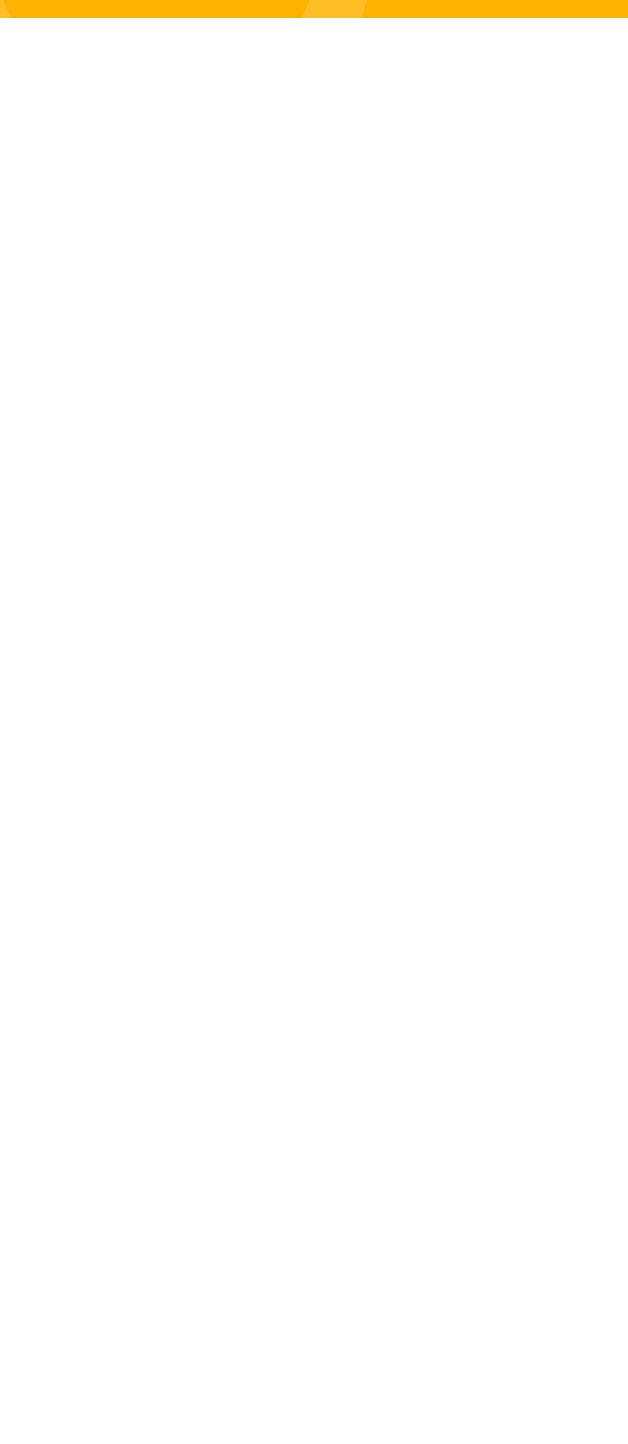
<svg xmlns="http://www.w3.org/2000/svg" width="628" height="1444">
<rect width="100%" height="100%" fill="#fff"/>
<rect width="628" height="18" fill="#ffb300"/>
<image x="0" y="0" width="367" height="18" href="media/1.png"/>
</svg>
